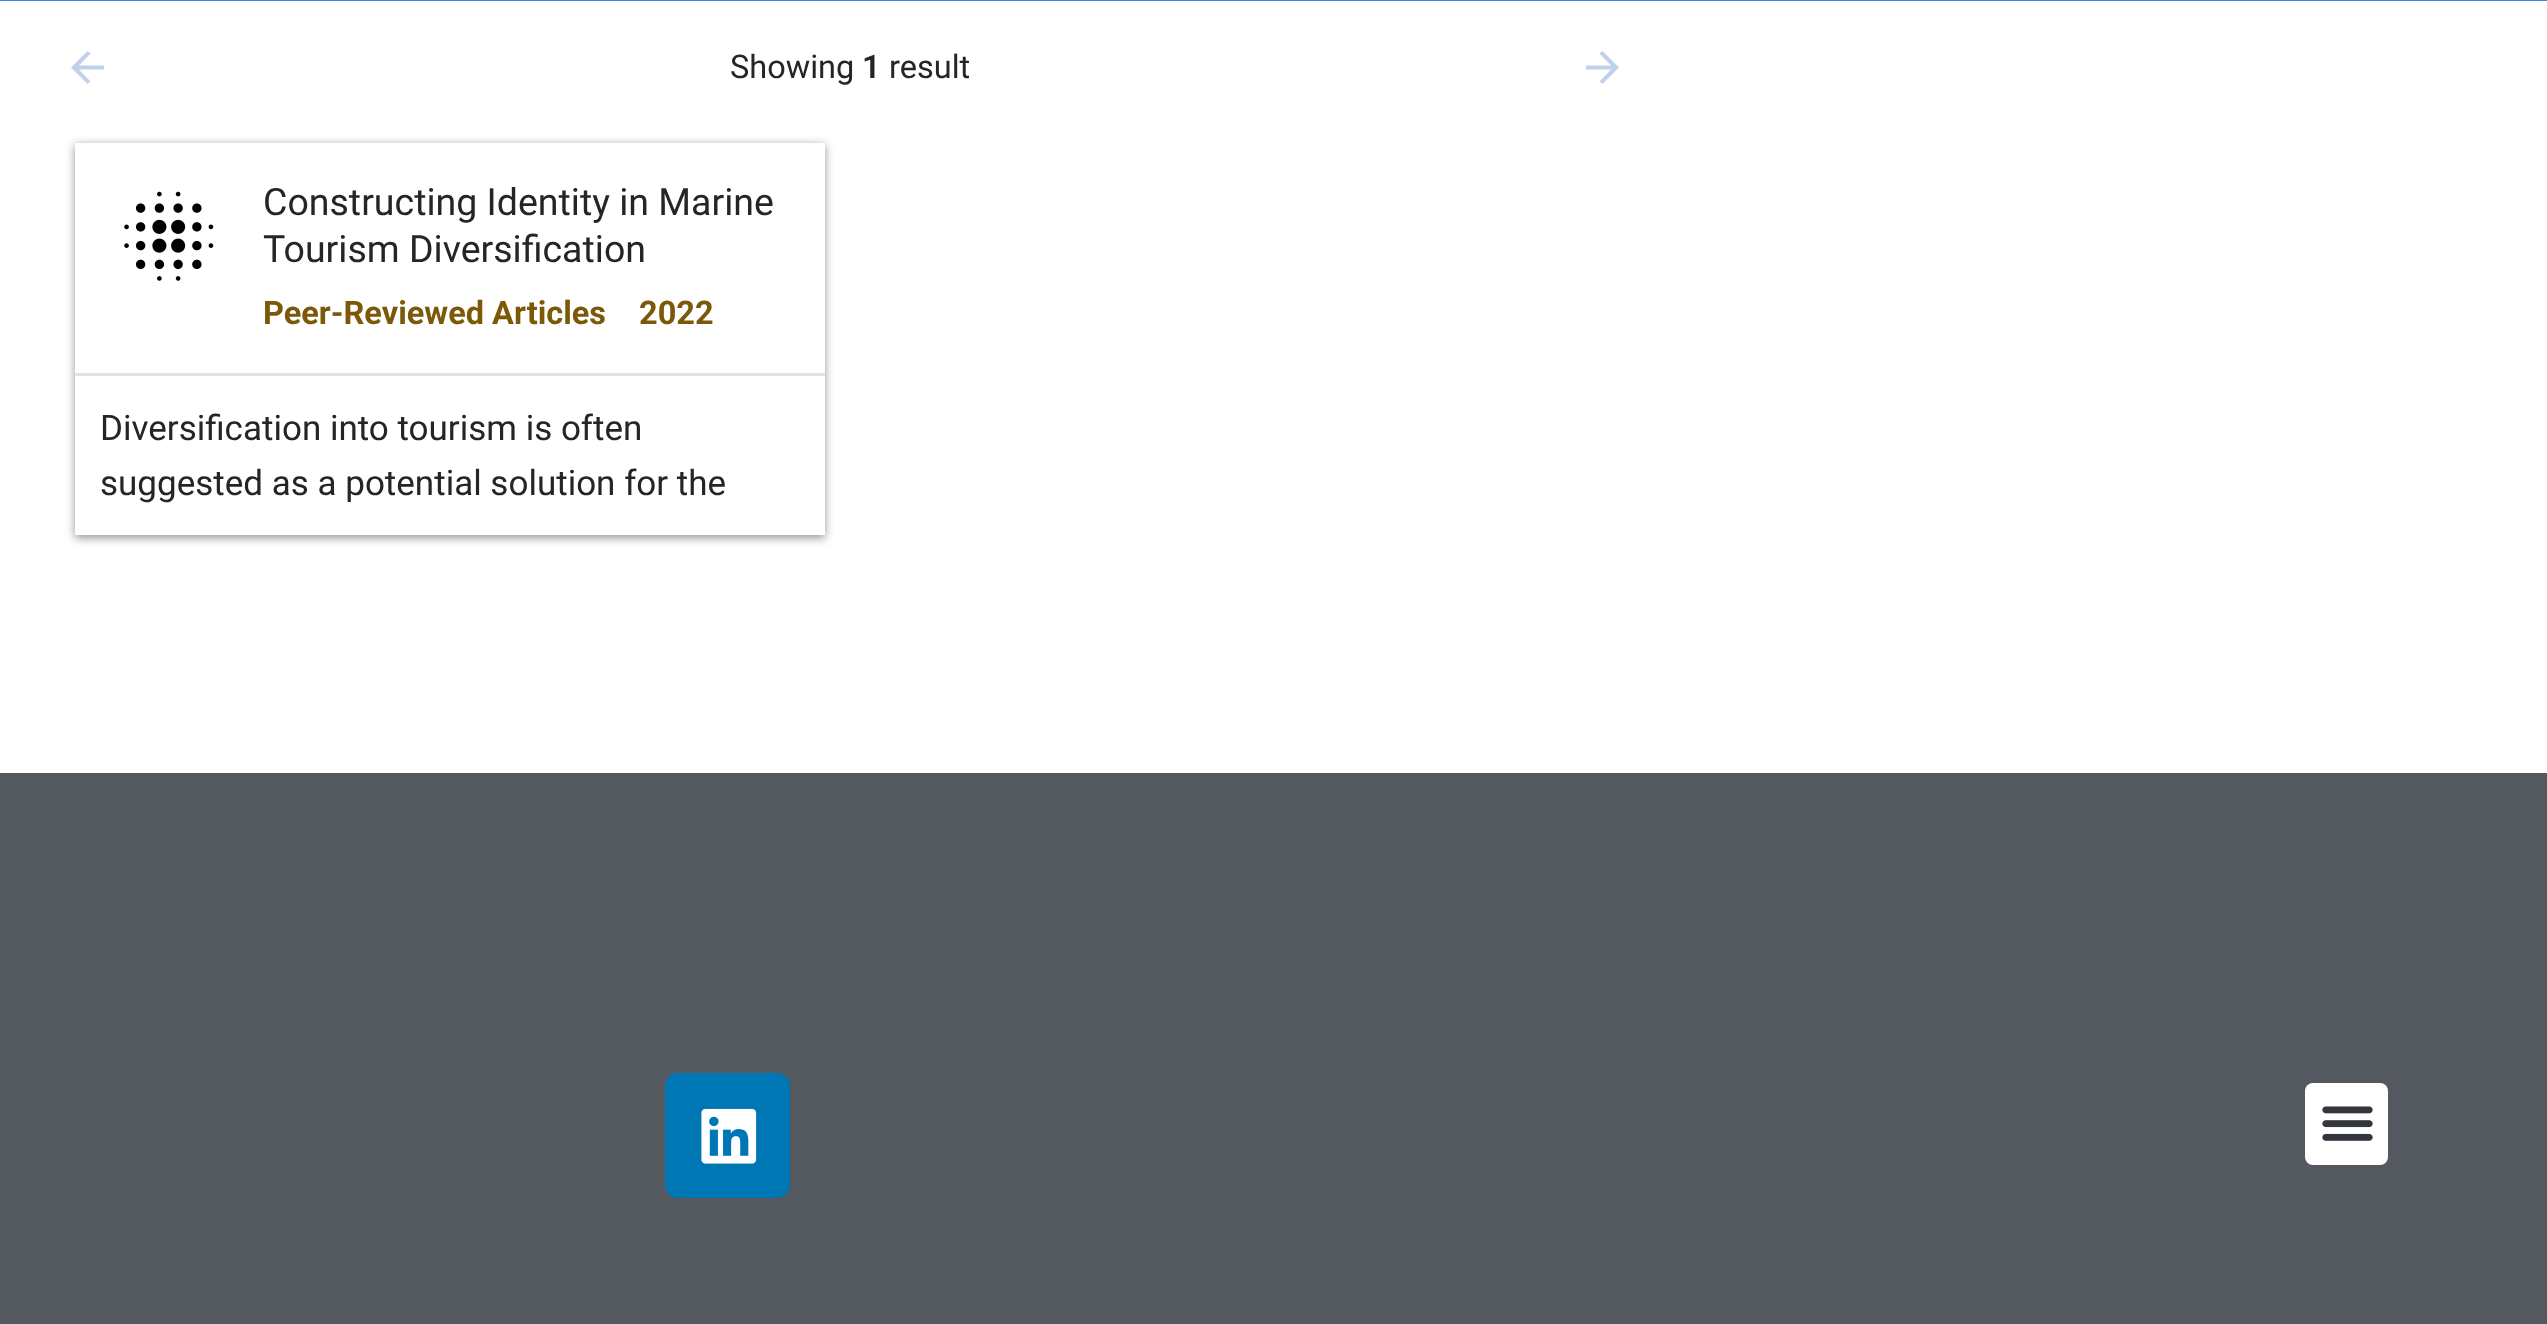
<svg xmlns="http://www.w3.org/2000/svg" width="2547" height="1324">
<defs>
<clipPath id="clip1"><path d="M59 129h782v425h-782zm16 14h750v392h-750z" clip-rule="evenodd"/></clipPath>
</defs>
<rect width="100%" height="100%" fill="#54595f"/>
<rect y="1" width="2547" height="772" fill="#fff"/>
<rect width="2547" height="1" fill="#3886e6"/>
<path d="M104 65.5v4h-25l11.5 12l-3 2.5l-16.5-16.5l16.5-16.5l3 2.5l-11.5 12z" fill="#c0d2e9"/>
<text x="730" y="78" style="font-family:Roboto;font-size:32.5px;fill:#242429">Showing</text>
<text x="862" y="78" style="font-family:Roboto;font-size:32.5px;font-weight:600;fill:#242429">1</text>
<text x="889" y="78" style="font-family:Roboto;font-size:32.5px;fill:#242429">result</text>
<path d="M1602.5 51l16.5 16.5l-16.5 16.5l-3-2.5l11.5-12h-25v-4h25l-11.5-12z" fill="#c0d2e9"/>
<g clip-path="url(#clip1)">
<rect x="75" y="145" width="750" height="393" fill="#0000006b" filter="blur(5px)"/>
</g>
<image x="124" y="191" width="90" height="90" href="media/1.png"/>
<text x="263" y="215" style="font-family:Roboto;font-size:37.5px;fill:#242429">Constructing Identity in Marine</text>
<text x="263" y="262" style="font-family:Roboto;font-size:37.5px;fill:#242429">Tourism Diversification</text>
<text x="263" y="324" style="font-family:Roboto;font-size:32.5px;font-weight:bold;fill:#7b5909">Peer-Reviewed Articles</text>
<text x="639" y="324" style="font-family:Roboto;font-size:32.5px;font-weight:bold;fill:#7b5909">2022</text>
<rect x="75" y="373" width="750" height="3" fill="#e3e3e3"/>
<text x="100" y="440" style="font-family:Roboto;font-size:35px;fill:#242429">Diversification into tourism is often</text>
<text x="100" y="495" style="font-family:Roboto;font-size:35px;fill:#242429">suggested as a potential solution for the</text>
<rect x="665" y="1073" width="125" height="125" rx="13" fill="#0077b5"/>
<image x="701" y="1108" width="56" height="56" href="media/2.png"/>
<rect x="2305" y="1083" width="83" height="82" rx="8" fill="#fff"/>
<image x="2322" y="1106" width="51" height="35" href="media/3.png"/>
</svg>
